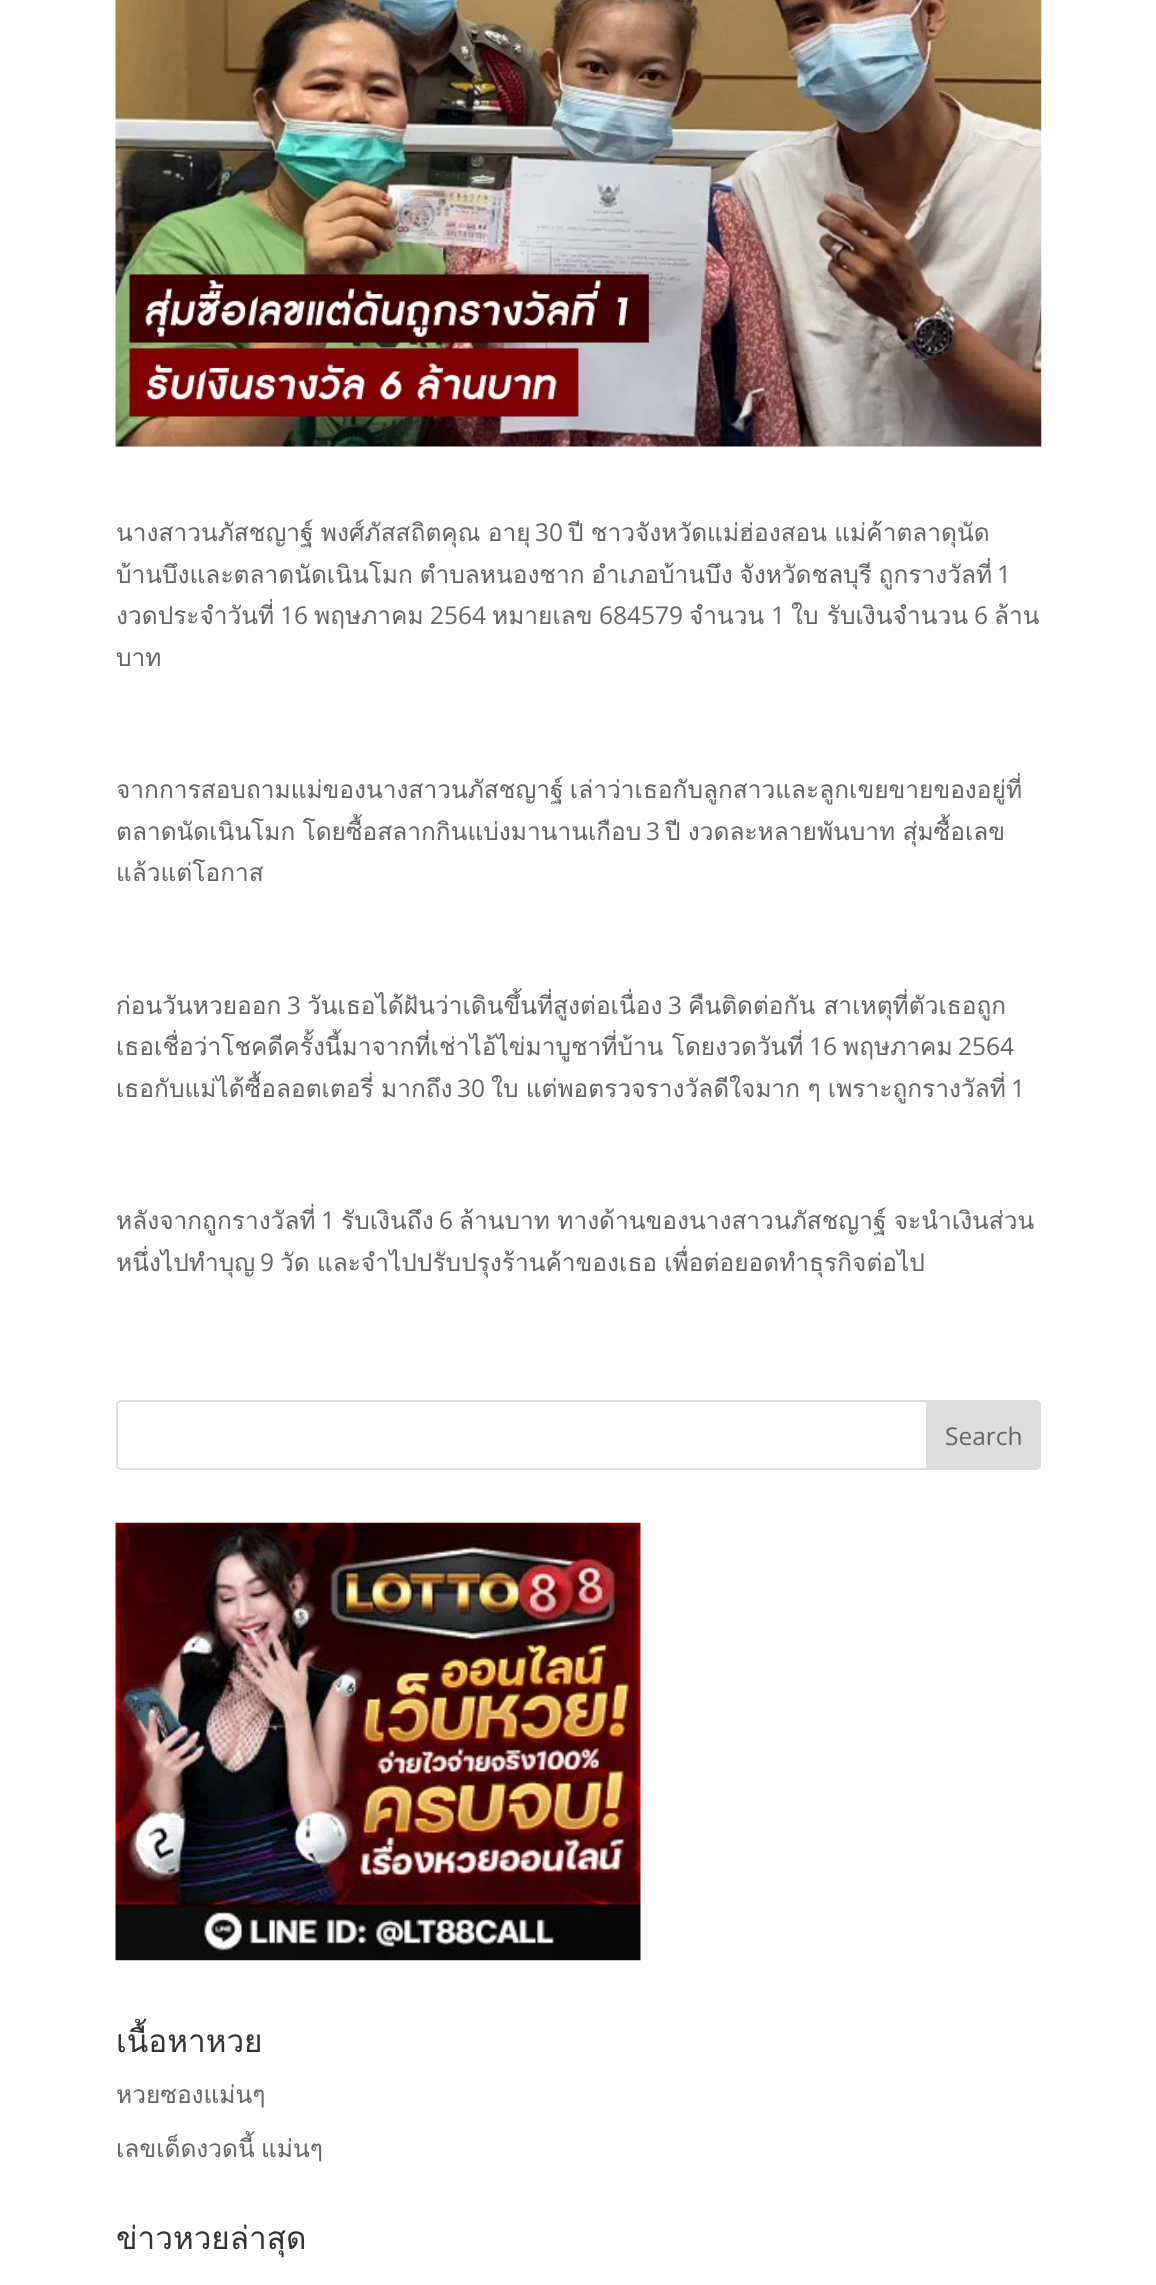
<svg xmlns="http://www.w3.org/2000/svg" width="1156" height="2285">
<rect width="100%" height="100%" fill="#fff"/>
<image x="115" y="0" width="927" height="447" href="media/1.png"/>
<text x="116" y="541" word-spacing="-1" style="font-family:Loma;font-size:24.5px;fill:#666">นางสาวนภัสชญาฐ์ พงศ์ภัสสถิตคุณ อายุ</text>
<text x="535" y="541" style="font-family:Open Sans;font-size:24.5px;fill:#666">30</text>
<text x="568" y="541" word-spacing="-1" style="font-family:Loma;font-size:24.5px;fill:#666">ปี ชาวจังหวัดแม่ฮ่องสอน แม่ค้าตลาดุนัด</text>
<text x="116" y="583" word-spacing="-1.5" style="font-family:Loma;font-size:24.5px;fill:#666">บ้านบึงและตลาดนัดเนินโมก ตำบลหนองชาก อำเภอบ้านบึง จังหวัดชลบุรี ถูกรางวัลที่</text>
<text x="997" y="583" style="font-family:Open Sans;font-size:24.5px;fill:#666">1</text>
<text x="116" y="624" style="font-family:Loma;font-size:24.5px;fill:#666">งวดประจำวันที่</text>
<text x="280" y="624" style="font-family:Open Sans;font-size:24.5px;fill:#666">16</text>
<text x="314" y="624" style="font-family:Loma;font-size:24.5px;fill:#666">พฤษภาคม</text>
<text x="430" y="624" style="font-family:Open Sans;font-size:24.5px;fill:#666">2564</text>
<text x="492" y="624" style="font-family:Loma;font-size:24.5px;fill:#666">หมายเลข</text>
<text x="599" y="624" style="font-family:Open Sans;font-size:24.5px;fill:#666">684579</text>
<text x="689" y="624" style="font-family:Loma;font-size:24.5px;fill:#666">จำนวน</text>
<text x="771" y="624" style="font-family:Open Sans;font-size:24.5px;fill:#666">1</text>
<text x="791" y="624" style="font-family:Loma;font-size:24.5px;fill:#666">ใบ รับเงินจำนวน</text>
<text x="974" y="624" style="font-family:Open Sans;font-size:24.5px;fill:#666">6</text>
<text x="994" y="624" style="font-family:Loma;font-size:24.5px;fill:#666">ล้าน</text>
<text x="116" y="666" style="font-family:Loma;font-size:24.5px;fill:#666">บาท</text>
<text x="116" y="798" word-spacing="-2" style="font-family:Loma;font-size:24.5px;fill:#666">จากการสอบถามแม่ของนางสาวนภัสชญาฐ์ เล่าว่าเธอกับลูกสาวและลูกเขยขายของอยู่ที่</text>
<text x="116" y="840" word-spacing="-1" style="font-family:Loma;font-size:24.5px;fill:#666">ตลาดนัดเนินโมก โดยซื้อสลากกินแบ่งมานานเกือบ</text>
<text x="646" y="840" style="font-family:Open Sans;font-size:24.5px;fill:#666">3</text>
<text x="665" y="840" word-spacing="-1" style="font-family:Loma;font-size:24.5px;fill:#666">ปี งวดละหลายพันบาท สุ่มซื้อเลข</text>
<text x="116" y="881" style="font-family:Loma;font-size:24.5px;fill:#666">แล้วแต่โอกาส</text>
<text x="116" y="1014" style="font-family:Loma;font-size:24.5px;fill:#666">ก่อนวันหวยออก</text>
<text x="287" y="1014" style="font-family:Open Sans;font-size:24.5px;fill:#666">3</text>
<text x="307" y="1014" style="font-family:Loma;font-size:24.5px;fill:#666">วันเธอได้ฝันว่าเดินขึ้นที่สูงต่อเนื่อง</text>
<text x="668" y="1014" style="font-family:Open Sans;font-size:24.5px;fill:#666">3</text>
<text x="688" y="1014" style="font-family:Loma;font-size:24.5px;fill:#666">คืนติดต่อกัน สาเหตุที่ตัวเธอถูก</text>
<text x="116" y="1055" style="font-family:Loma;font-size:24.5px;fill:#666">เธอเชื่อว่าโชคดีครั้งนี้มาจากที่เช่าไอ้ไข่มาบูชาที่บ้าน โดยงวดวันที่</text>
<text x="809" y="1055" style="font-family:Open Sans;font-size:24.5px;fill:#666">16</text>
<text x="843" y="1055" style="font-family:Loma;font-size:24.5px;fill:#666">พฤษภาคม</text>
<text x="958" y="1055" style="font-family:Open Sans;font-size:24.5px;fill:#666">2564</text>
<text x="116" y="1097" word-spacing="-1" style="font-family:Loma;font-size:24.5px;fill:#666">เธอกับแม่ได้ซื้อลอตเตอรี่ มากถึง</text>
<text x="457" y="1097" style="font-family:Open Sans;font-size:24.5px;fill:#666">30</text>
<text x="491" y="1097" word-spacing="-1" style="font-family:Loma;font-size:24.5px;fill:#666">ใบ แต่พอตรวจรางวัลดีใจมาก ๆ เพราะถูกรางวัลที่</text>
<text x="1011" y="1097" style="font-family:Open Sans;font-size:24.5px;fill:#666">1</text>
<text x="116" y="1229" style="font-family:Loma;font-size:24.5px;fill:#666">หลังจากถูกรางวัลที่</text>
<text x="321" y="1229" style="font-family:Open Sans;font-size:24.5px;fill:#666">1</text>
<text x="341" y="1229" style="font-family:Loma;font-size:24.5px;fill:#666">รับเงินถึง</text>
<text x="439" y="1229" style="font-family:Open Sans;font-size:24.5px;fill:#666">6</text>
<text x="459" y="1229" word-spacing="-1" style="font-family:Loma;font-size:24.5px;fill:#666">ล้านบาท ทางด้านของนางสาวนภัสชญาฐ์ จะนำเงินส่วน</text>
<text x="116" y="1271" style="font-family:Loma;font-size:24.5px;fill:#666">หนึ่งไปทำบุญ</text>
<text x="260" y="1271" style="font-family:Open Sans;font-size:24.5px;fill:#666">9</text>
<text x="280" y="1271" word-spacing="-1" style="font-family:Loma;font-size:24.5px;fill:#666">วัด และจำไปปรับปรุงร้านค้าของเธอ เพื่อต่อยอดทำธุรกิจต่อไป</text>
<rect x="117" y="1401" width="923" height="68" rx="4" fill="none" stroke="#ddd" stroke-width="2"/>
<path d="M927 1401h109c2 0 4 2 4 4v60c0 2-2 4-4 4h-109z" fill="#ddd" stroke="#ddd" stroke-width="2"/>
<text x="945" y="1445" style="font-family:Open Sans;font-size:24.5px;fill:#666">Search</text>
<image x="115" y="1522" width="526" height="439" href="media/2.png"/>
<text x="116" y="2052" style="font-family:Loma;font-size:31.5px;fill:#333">เนื้อหาหวย</text>
<text x="116" y="2103" style="font-family:Loma;font-size:24.5px;fill:#666">หวยซองแม่นๆ</text>
<text x="116" y="2157" word-spacing="-2" style="font-family:Loma;font-size:24.5px;fill:#666">เลขเด็ดงวดนี้ แม่นๆ</text>
<text x="116" y="2249" style="font-family:Loma;font-size:31.5px;fill:#333">ข่าวหวยล่าสุด</text>
</svg>
